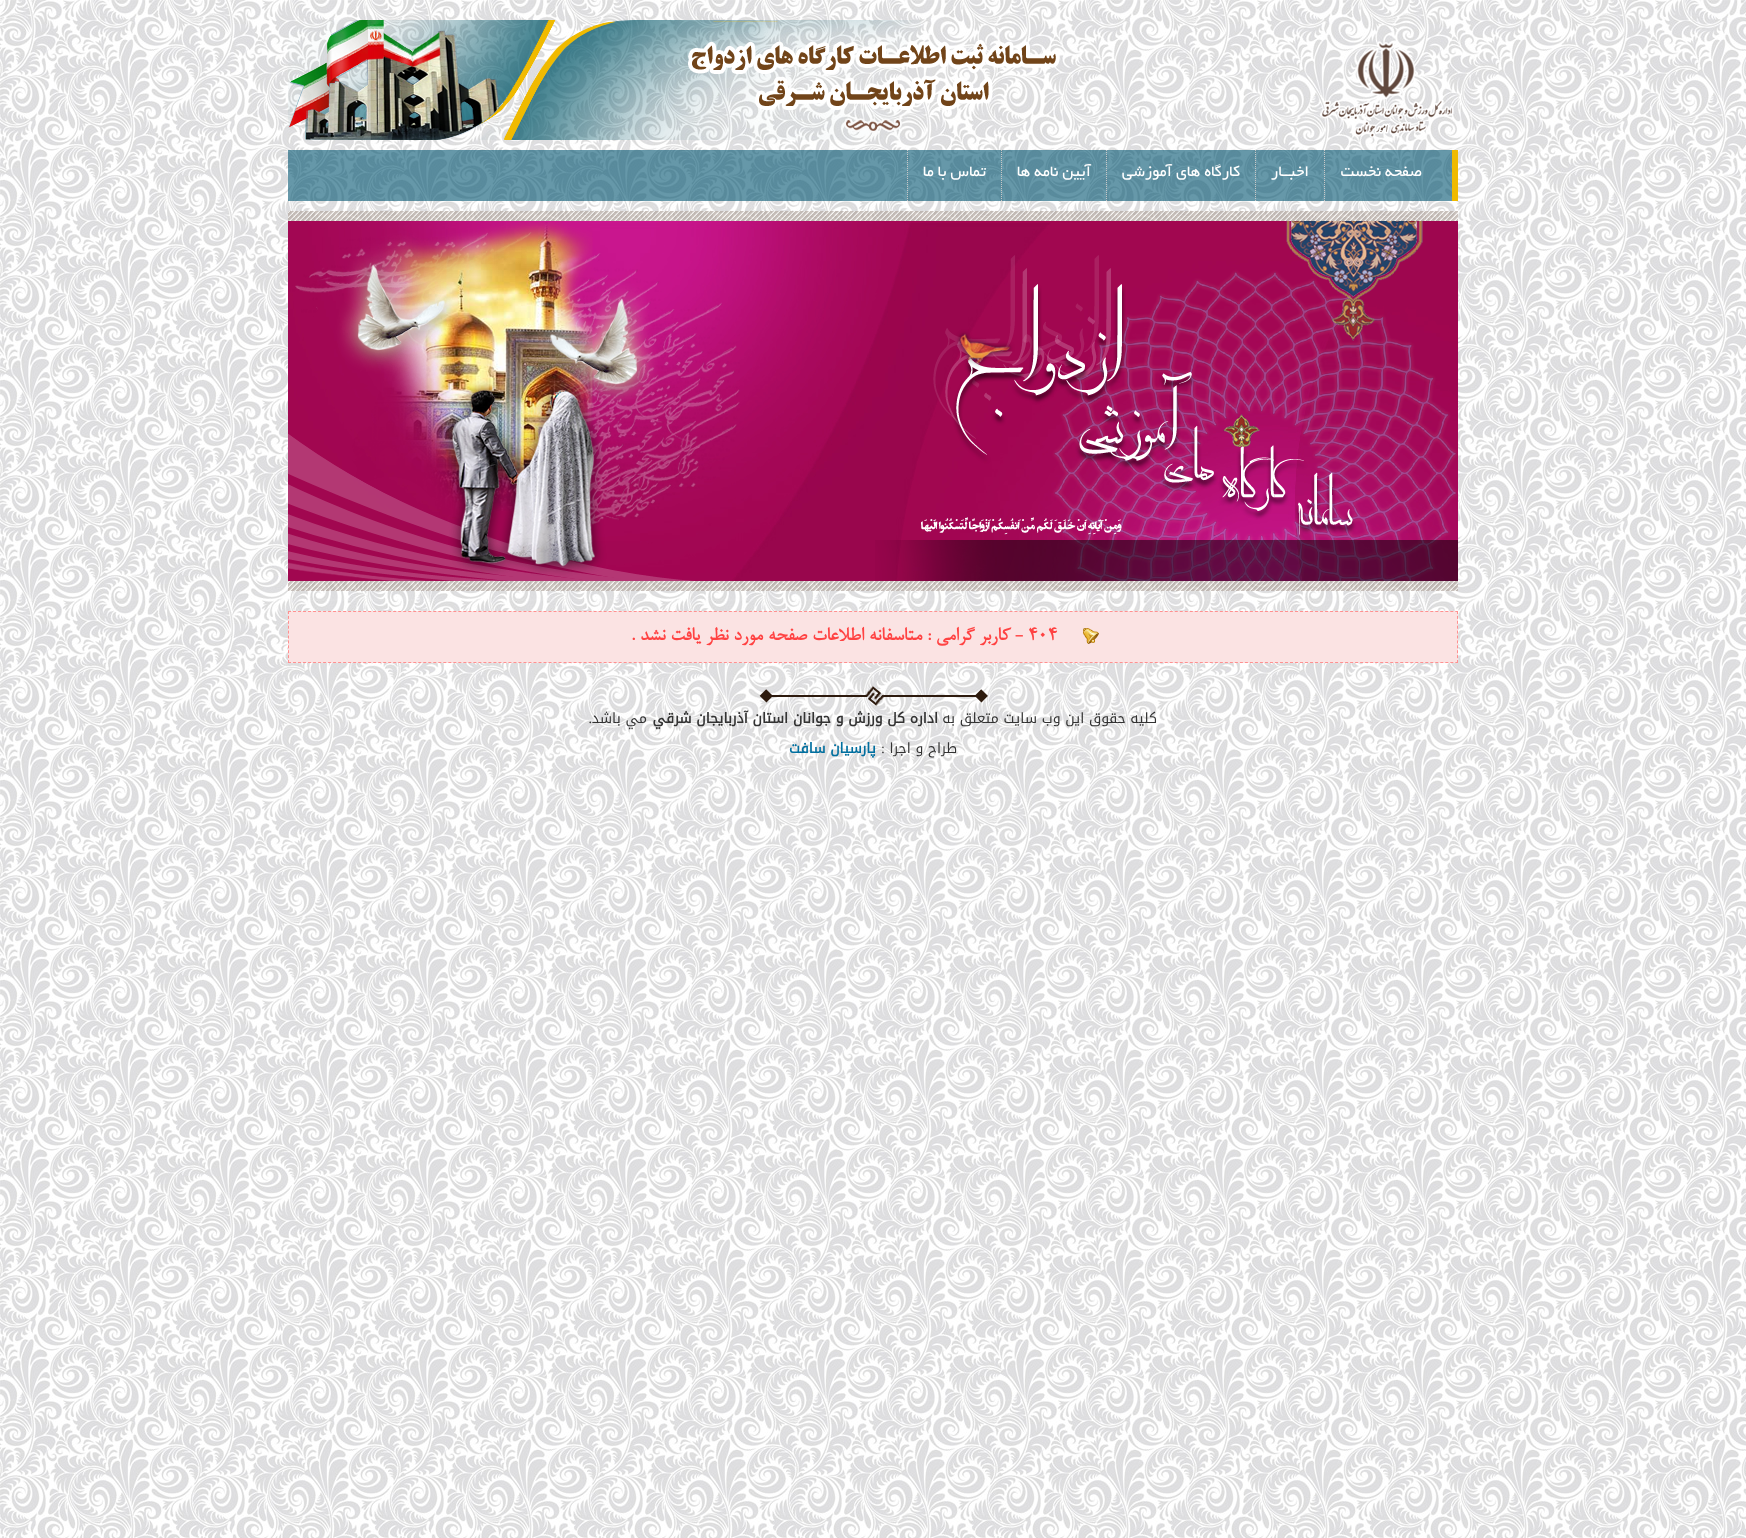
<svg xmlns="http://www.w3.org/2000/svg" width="1746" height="1538">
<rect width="100%" height="100%" fill="#fff"/>
<image x="0" y="0" width="1746" height="1538" href="media/1.png"/>
<image x="288" y="20" width="633" height="120" href="media/2.png"/>
<image x="1320" y="40" width="134" height="99" href="media/3.png"/>
<image x="688" y="39" width="372" height="94" href="media/4.png"/>
<rect x="288" y="150" width="1164" height="51" fill="#00537099"/>
<rect x="1452" y="150" width="6" height="51" fill="#f0ba00"/>
<path d="M1324.5 150v51" fill="none" stroke="#c7c7c7" stroke-dasharray="1 1"/>
<text x="1422" y="176" style="font-family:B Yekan;font-size:17px;direction:rtl;fill:#fff">صفحه نخست</text>
<path d="M1255.5 150v51" fill="none" stroke="#c7c7c7" stroke-dasharray="1 1"/>
<text x="1309" y="176" style="font-family:B Yekan;font-size:17px;direction:rtl;fill:#fff">اخبــار</text>
<path d="M1106.5 150v51" fill="none" stroke="#c7c7c7" stroke-dasharray="1 1"/>
<text x="1240" y="176" style="font-family:B Yekan;font-size:17px;direction:rtl;fill:#fff">کارگاه های آموزشی</text>
<path d="M1001.5 150v51" fill="none" stroke="#c7c7c7" stroke-dasharray="1 1"/>
<text x="1091" y="176" style="font-family:B Yekan;font-size:17px;direction:rtl;fill:#fff">آيين نامه ها</text>
<path d="M907.5 150v51" fill="none" stroke="#c7c7c7" stroke-dasharray="1 1"/>
<text x="986" y="176" style="font-family:B Yekan;font-size:17px;direction:rtl;fill:#fff">تماس با ما</text>
<image x="288" y="211" width="1170" height="10" href="media/5.png"/>
<image x="288" y="221" width="1170" height="360" href="media/6.png"/>
<image x="288" y="222" width="452" height="359" href="media/7.png"/>
<image x="875" y="221" width="583" height="360" href="media/8.png"/>
<image x="288" y="581" width="1170" height="10" href="media/9.png"/>
<rect x="288" y="611" width="1170" height="52" fill="#fbe3e3"/>
<path d="M288 611.5h1170" fill="none" stroke="#ff9090" stroke-dasharray="3 2.01"/>
<path d="M1457.5 611v52" fill="none" stroke="#ff9090" stroke-dasharray="3 1.9"/>
<path d="M288 662.5h1170" fill="none" stroke="#ff9090" stroke-dasharray="3 2.01"/>
<path d="M288.5 611v52" fill="none" stroke="#ff9090" stroke-dasharray="3 1.9"/>
<image x="1083" y="628" width="16" height="16" href="media/10.png"/>
<text x="1028" y="640" style="font-family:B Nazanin;font-size:21px;font-weight:bold;fill:#ff4242">404</text>
<text x="1023" y="640" style="font-family:B Nazanin;font-size:21px;font-weight:bold;direction:rtl;fill:#ff4242">- کاربر گرامی : متاسفانه اطلاعات صفحه مورد نظر یافت نشد .</text>
<image x="759" y="685" width="229" height="21" href="media/11.png"/>
<text x="1157" y="723" style="font-family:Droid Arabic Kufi;font-size:14px;direction:rtl;fill:#333">کليه حقوق اين وب سايت متعلق به</text>
<text x="938" y="723" style="font-family:Droid Arabic Kufi;font-size:14px;font-weight:bold;direction:rtl;fill:#333">اداره کل ورزش و جوانان استان آذربايجان شرقي</text>
<text x="647" y="723" style="font-family:Droid Arabic Kufi;font-size:14px;direction:rtl;fill:#333">مي باشد</text>
<text x="592" y="723" style="font-family:Liberation Serif;font-size:14px;direction:rtl;fill:#333">.</text>
<text x="957" y="753" style="font-family:Droid Arabic Kufi;font-size:14px;direction:rtl;fill:#333">طراح و اجرا</text>
<text x="885" y="753" style="font-family:Liberation Serif;font-size:14px;direction:rtl;fill:#333">:</text>
<text x="876" y="753" style="font-family:Droid Arabic Kufi;font-size:14px;font-weight:bold;direction:rtl;fill:#006f9f">پارسيان سافت</text>
</svg>
